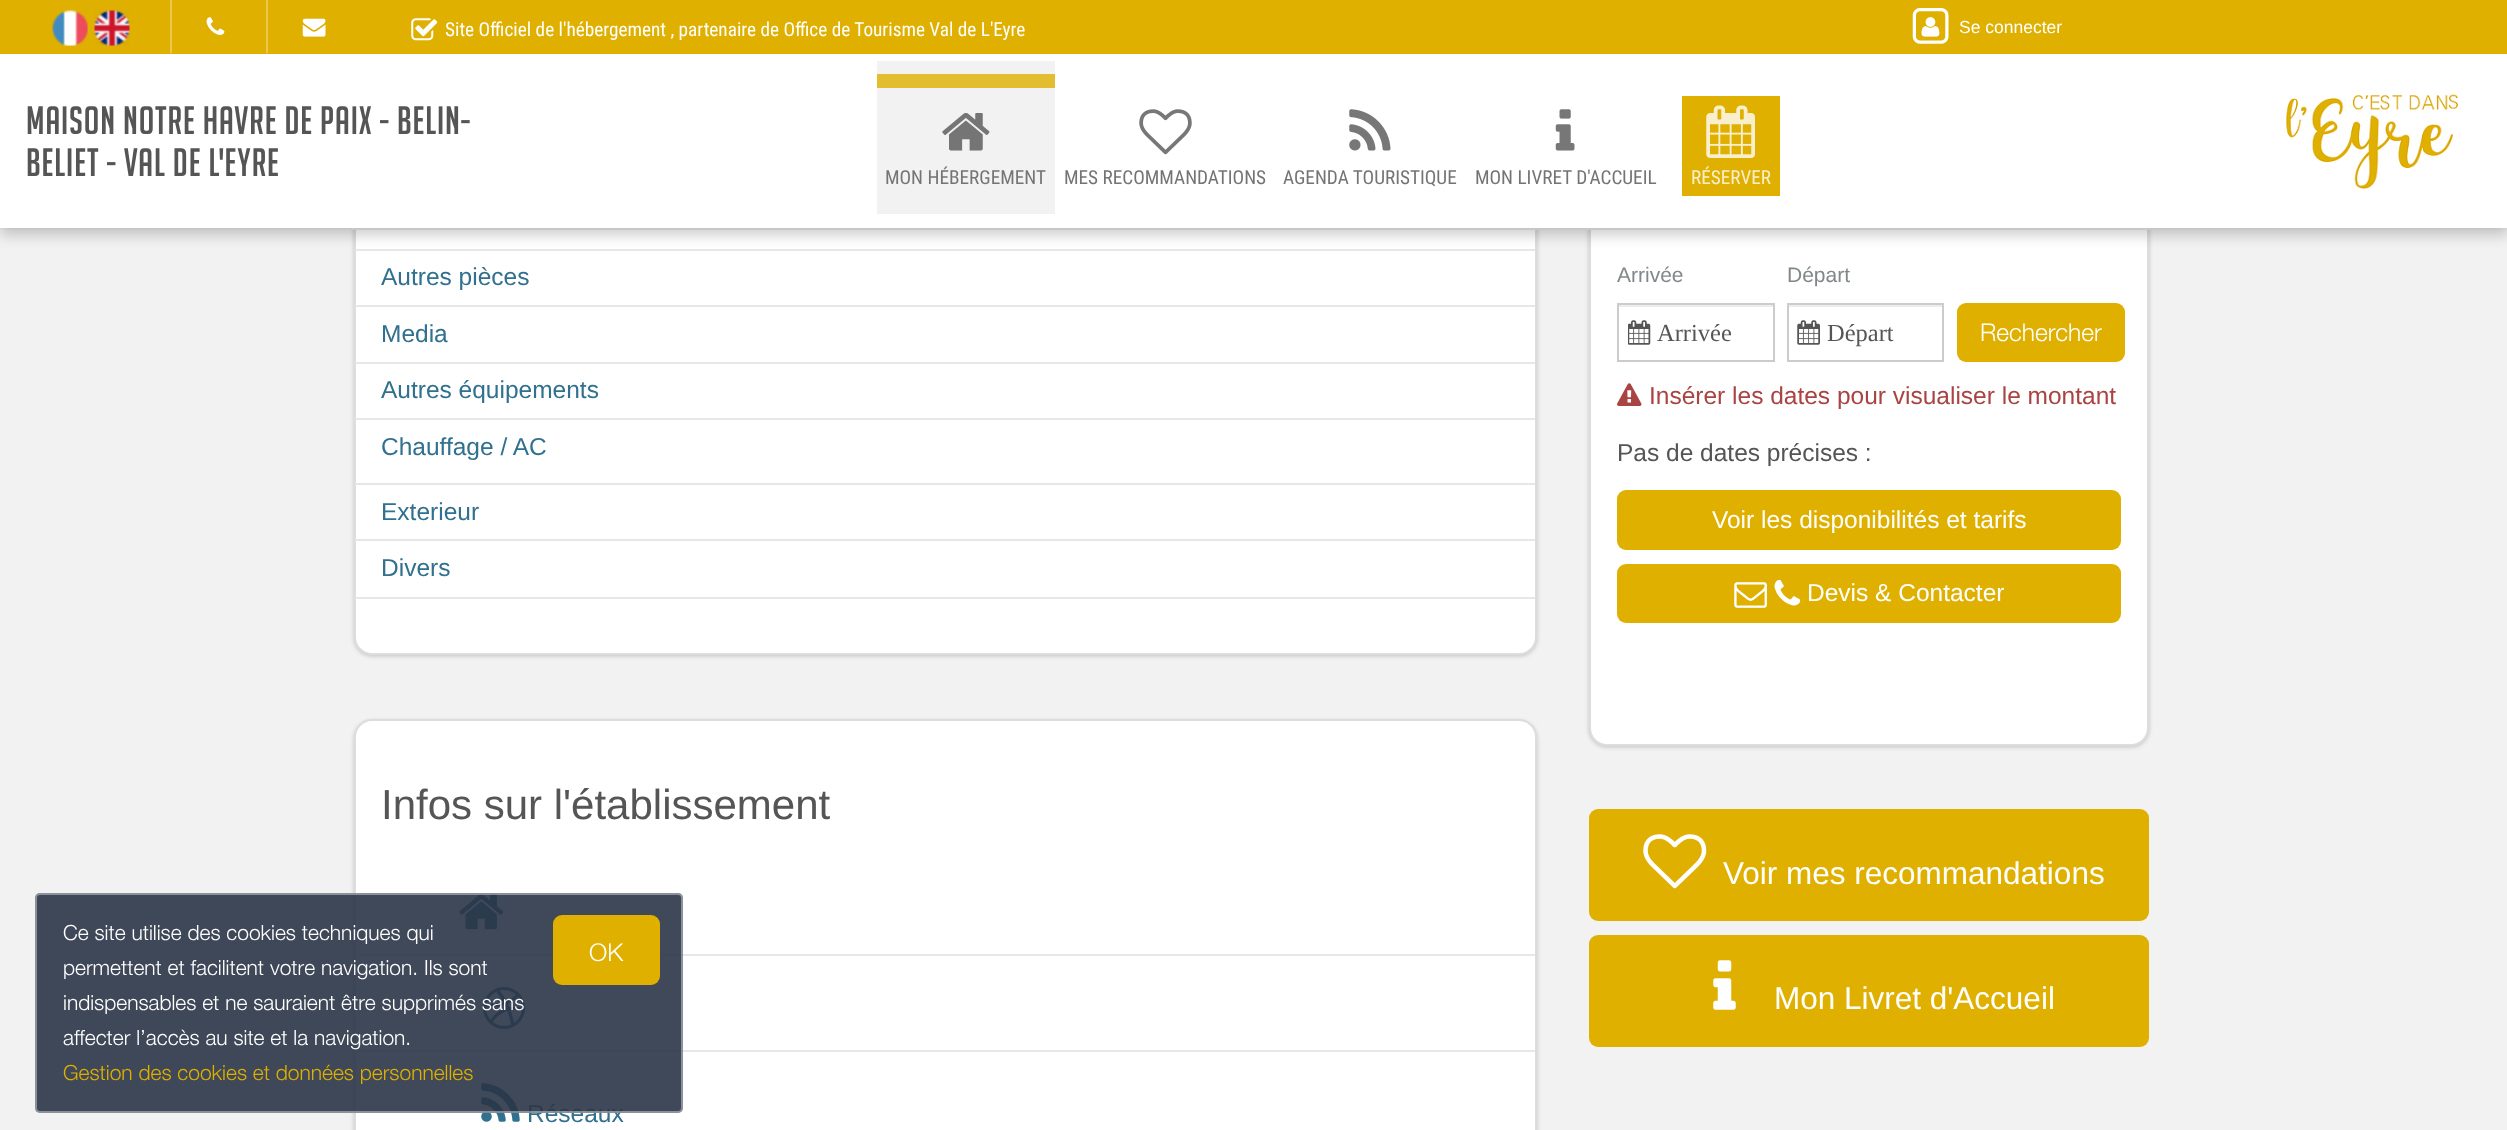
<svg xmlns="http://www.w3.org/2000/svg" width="2507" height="1130">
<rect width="100%" height="100%" fill="#f2f2f2"/>
<rect x="354" y="-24" width="1183" height="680" rx="18" fill="#00000033" filter="blur(2px)"/>
<rect x="355" y="-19" width="1181" height="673" rx="17" fill="#fff" stroke="#ddd" stroke-width="2"/>
<rect x="1589" y="212" width="560" height="535" rx="18" fill="#00000033" filter="blur(2px)"/>
<rect x="1590" y="211" width="558" height="534" rx="17" fill="#fff" stroke="#ddd" stroke-width="2"/>
<rect y="228" width="2507" height="2" fill="#eee"/>
<rect x="355" y="249" width="1180" height="2" fill="#e7e7e7"/>
<rect y="7" width="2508" height="228" fill="#00000033" filter="blur(7px)"/>
<rect y="54" width="2507" height="174" fill="#fff"/>
<rect width="2507" height="54" fill="#dfb000"/>
<image x="52" y="9" width="36" height="37" href="media/1.png"/>
<image x="94" y="9" width="36" height="37" href="media/2.png"/>
<rect x="170" width="2" height="53" fill="#e9c84d"/>
<image x="206" y="17" width="19" height="18" href="media/3.png"/>
<rect x="266" width="2" height="53" fill="#e9c84d"/>
<image x="302" y="18" width="24" height="19" href="media/4.png"/>
<image x="411" y="18" width="27" height="23" href="media/5.png"/>
<text x="445" y="36" style="font-family:Roboto Condensed;font-size:19.25px;fill:#fff">Site Officiel de l'hébergement , partenaire de Office de Tourisme Val de L'Eyre</text>
<image x="1912" y="8" width="37" height="36" href="media/6.png"/>
<image x="1921" y="17" width="19" height="20" href="media/7.png"/>
<text x="1959" y="33" style="font-family:Liberation Sans;font-size:17.5px;fill:#fff">Se connecter</text>
<text x="26" y="134" style="font-family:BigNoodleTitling;font-size:38.5px;letter-spacing:0.9px;fill:#555">MAISON NOTRE HAVRE DE PAIX - BELIN-</text>
<text x="26" y="176" style="font-family:BigNoodleTitling;font-size:38.5px;letter-spacing:0.9px;fill:#555">BELIET - VAL DE L'EYRE</text>
<rect x="877" y="61" width="178" height="153" fill="#f2f2f2"/>
<rect x="877" y="74" width="178" height="14" fill="#e3bd30"/>
<image x="942" y="113" width="48" height="38" href="media/8.png"/>
<text x="885" y="184" style="font-family:Roboto Condensed;font-size:19.25px;fill:#747474">MON HÉBERGEMENT</text>
<image x="1139" y="109" width="53" height="46" href="media/9.png"/>
<text x="1064" y="184" style="font-family:Roboto Condensed;font-size:19.25px;fill:#747474">MES RECOMMANDATIONS</text>
<image x="1349" y="109" width="42" height="42" href="media/10.png"/>
<text x="1283" y="184" style="font-family:Roboto Condensed;font-size:19.25px;fill:#747474">AGENDA TOURISTIQUE</text>
<image x="1555" y="109" width="20" height="42" href="media/11.png"/>
<text x="1475" y="184" style="font-family:Roboto Condensed;font-size:19.25px;fill:#747474">MON LIVRET D'ACCUEIL</text>
<rect x="1682" y="96" width="98" height="100" fill="#dfb000"/>
<image x="1706" y="105" width="49" height="53" href="media/12.png"/>
<text x="1691" y="184" style="font-family:Roboto Condensed;font-size:19.25px;fill:#f9efcc">RÉSERVER</text>
<image x="2286" y="93" width="172" height="98" href="media/13.png"/>
<rect x="354" y="721" width="1183" height="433" rx="18" fill="#00000033" filter="blur(2px)"/>
<rect x="355" y="720" width="1181" height="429" rx="17" fill="#fff" stroke="#ddd" stroke-width="2"/>
<rect x="355" y="954" width="1180" height="2" fill="#e7e7e7"/>
<image x="459" y="894" width="45" height="36" href="media/14.png"/>
<rect x="355" y="1050" width="1180" height="2" fill="#e7e7e7"/>
<image x="483" y="987" width="42" height="42" href="media/15.png"/>
<image x="481" y="1083" width="39" height="39" href="media/16.png"/>
<text x="527" y="1122" style="font-family:Liberation Sans;font-size:24.5px;fill:#31708f">Réseaux</text>
<rect x="35" y="893" width="648" height="220" rx="5" fill="#2b3547e6"/>
<rect x="36" y="894" width="646" height="218" rx="4" fill="none" stroke="#ffffff66" stroke-width="2"/>
<text x="63" y="940" style="font-family:Helvetica Neue;font-size:21px;font-weight:300;fill:#fff">Ce site utilise des cookies techniques qui</text>
<rect x="553" y="915" width="107" height="70" rx="9" fill="#dfb000"/>
<text x="589" y="961" style="font-family:Helvetica Neue;font-size:24.5px;font-weight:300;fill:#fff">OK</text>
<text x="63" y="975" style="font-family:Helvetica Neue;font-size:21px;font-weight:300;fill:#fff">permettent et facilitent votre navigation. Ils sont</text>
<text x="63" y="1010" style="font-family:Helvetica Neue;font-size:21px;font-weight:300;fill:#fff">indispensables et ne sauraient être supprimés sans</text>
<text x="63" y="1045" style="font-family:Helvetica Neue;font-size:21px;font-weight:300;fill:#fff">affecter l’accès au site et la navigation.</text>
<text x="63" y="1080" style="font-family:Helvetica Neue;font-size:21px;font-weight:300;fill:#dfb000">Gestion des cookies et données personnelles</text>
<rect x="355" y="305" width="1180" height="2" fill="#e7e7e7"/>
<text x="381" y="285" style="font-family:Liberation Sans;font-size:24.5px;fill:#31708f">Autres pièces</text>
<rect x="355" y="362" width="1180" height="2" fill="#e7e7e7"/>
<text x="381" y="342" style="font-family:Liberation Sans;font-size:24.5px;fill:#31708f">Media</text>
<rect x="355" y="418" width="1180" height="2" fill="#e7e7e7"/>
<text x="381" y="398" style="font-family:Liberation Sans;font-size:24.5px;fill:#31708f">Autres équipements</text>
<rect x="355" y="483" width="1180" height="2" fill="#e7e7e7"/>
<text x="381" y="455" style="font-family:Liberation Sans;font-size:24.5px;fill:#31708f">Chauffage / AC</text>
<rect x="355" y="539" width="1180" height="2" fill="#e7e7e7"/>
<text x="381" y="520" style="font-family:Liberation Sans;font-size:24.5px;fill:#31708f">Exterieur</text>
<rect x="355" y="597" width="1180" height="2" fill="#e7e7e7"/>
<text x="381" y="576" style="font-family:Liberation Sans;font-size:24.5px;fill:#31708f">Divers</text>
<text x="381" y="819" style="font-family:Liberation Sans;font-size:42px;fill:#555">Infos sur l'établissement</text>
<text x="1617" y="282" style="font-family:Liberation Sans;font-size:21px;fill:#82888a">Arrivée</text>
<rect x="1619" y="305" width="154" height="2" fill="#ececec"/>
<rect x="1618" y="304" width="156" height="57" fill="none" stroke="#ccc" stroke-width="2"/>
<image x="1628" y="320" width="23" height="25" href="media/17.png"/>
<text x="1657" y="341" style="font-family:Liberation Serif;font-size:24.5px;fill:#555">Arrivée</text>
<text x="1787" y="282" style="font-family:Liberation Sans;font-size:21px;fill:#82888a">Départ</text>
<rect x="1789" y="305" width="154" height="2" fill="#ececec"/>
<rect x="1788" y="304" width="155" height="57" fill="none" stroke="#ccc" stroke-width="2"/>
<image x="1797" y="320" width="23" height="25" href="media/18.png"/>
<text x="1827" y="341" style="font-family:Liberation Serif;font-size:24.5px;fill:#555">Départ</text>
<rect x="1957" y="303" width="168" height="59" rx="9" fill="#dfb000"/>
<text x="1980" y="341" style="font-family:Helvetica Neue;font-size:24.5px;font-weight:300;fill:#fff">Rechercher</text>
<image x="1617" y="383" width="25" height="23" href="media/19.png"/>
<text x="1649" y="404" style="font-family:Liberation Sans;font-size:24.5px;fill:#a94442">Insérer les dates pour visualiser le montant</text>
<text x="1617" y="461" style="font-family:Liberation Sans;font-size:24.5px;fill:#555">Pas de dates précises :</text>
<rect x="1617" y="490" width="504" height="60" rx="9" fill="#dfb000"/>
<text x="1712" y="528" style="font-family:Liberation Sans;font-size:24.5px;fill:#fff">Voir les disponibilités et tarifs</text>
<rect x="1617" y="564" width="504" height="59" rx="9" fill="#dfb000"/>
<image x="1734" y="582" width="33" height="26" href="media/20.png"/>
<image x="1774" y="579" width="27" height="27" href="media/21.png"/>
<text x="1807" y="601" style="font-family:Liberation Sans;font-size:24.5px;fill:#fff">Devis &amp; Contacter</text>
<rect x="1589" y="809" width="560" height="112" rx="9" fill="#dfb000"/>
<image x="1643" y="834" width="64" height="55" href="media/22.png"/>
<text x="1723" y="884" style="font-family:Liberation Sans;font-size:31.5px;fill:#fff">Voir mes recommandations</text>
<rect x="1589" y="935" width="560" height="112" rx="9" fill="#dfb000"/>
<image x="1713" y="960" width="23" height="50" href="media/23.png"/>
<text x="1774" y="1009" style="font-family:Liberation Sans;font-size:31.5px;fill:#fff">Mon Livret d'Accueil</text>
</svg>
